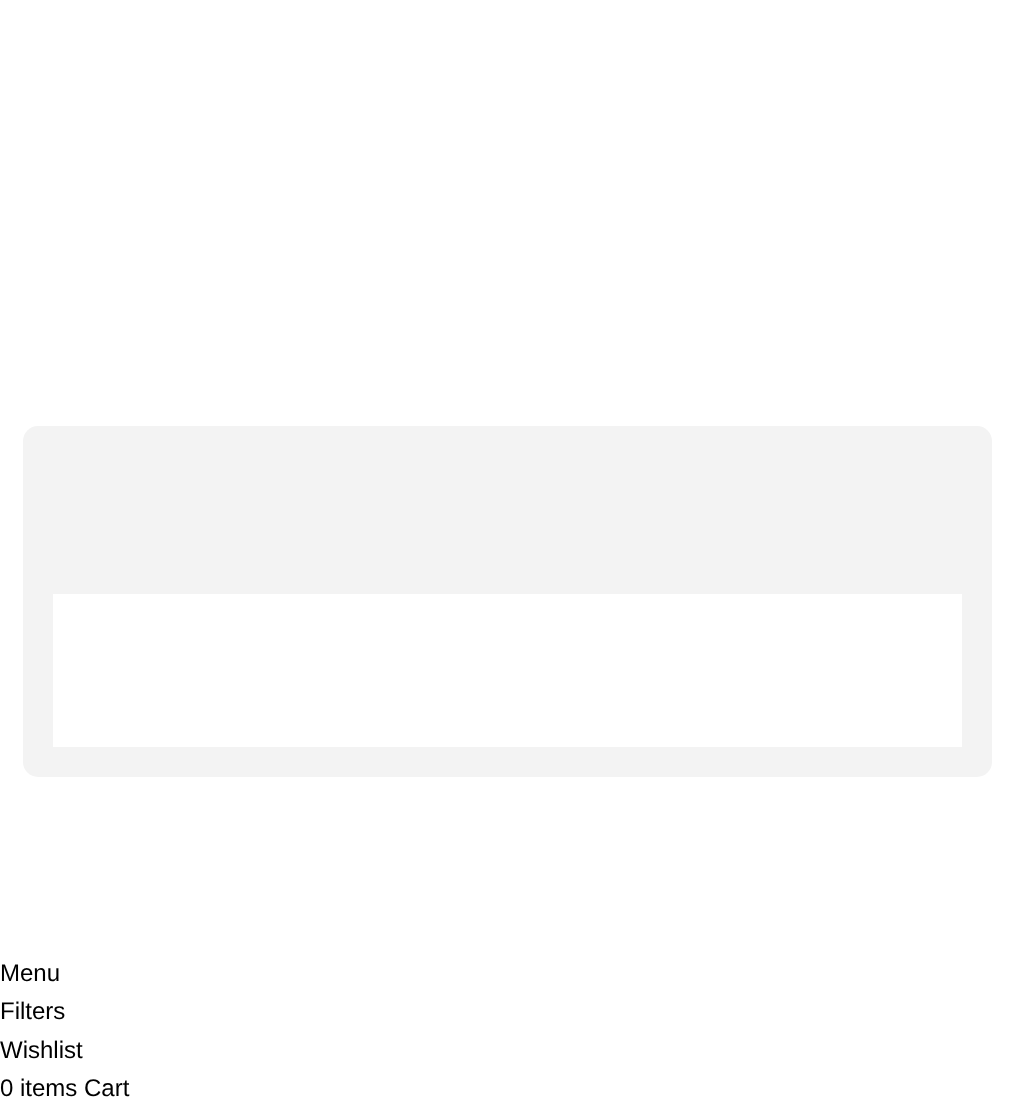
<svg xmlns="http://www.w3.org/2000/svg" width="1014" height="1106">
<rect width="100%" height="100%" fill="#fff"/>
<rect x="23" y="426" width="969" height="351" rx="15" fill="#f3f3f3"/>
<rect x="53" y="594" width="909" height="153" fill="#fff"/>
<text x="0" y="981" style="font-family:Liberation Sans;font-size:24px;fill:#000">Menu</text>
<text x="0" y="1019" style="font-family:Liberation Sans;font-size:24px;fill:#000">Filters</text>
<text x="0" y="1058" style="font-family:Liberation Sans;font-size:24px;fill:#000">Wishlist</text>
<text x="0" y="1096" style="font-family:Liberation Sans;font-size:24px;fill:#000">0 items Cart</text>
</svg>
